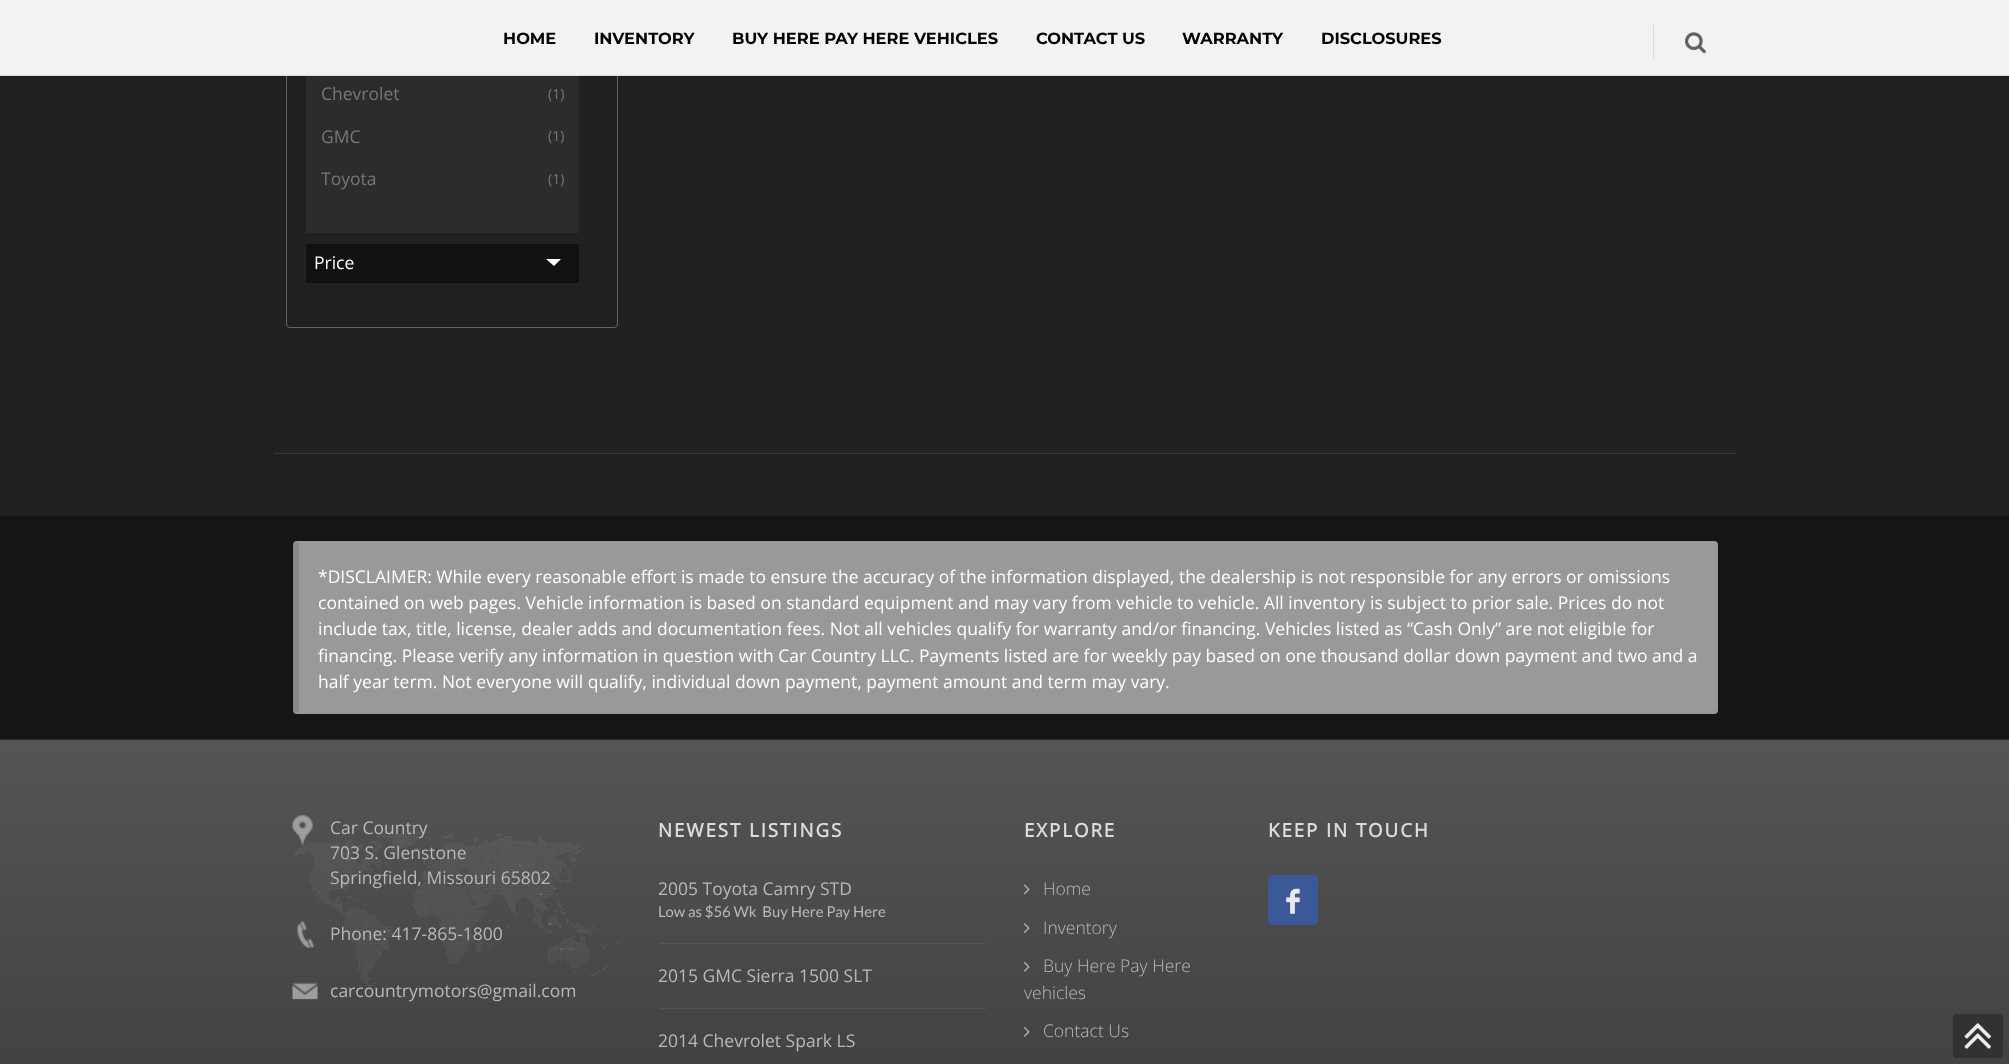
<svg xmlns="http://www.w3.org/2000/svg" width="2009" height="1064">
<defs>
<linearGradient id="g1" gradientUnits="userSpaceOnUse" x1="1005" y1="740" x2="1005" y2="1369"><stop offset="0" stop-color="#555"/><stop offset="1" stop-color="#313131"/></linearGradient>
</defs>
<rect width="100%" height="100%" fill="#212121"/>
<rect x="286.5" y="-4.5" width="331" height="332" rx="3.5" fill="none" stroke="#666"/>
<rect x="306" y="76" width="273" height="157" fill="#2c2c2c"/>
<rect width="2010" height="76" fill="#0000001a" filter="blur(1px)"/>
<rect width="2009" height="75" fill="#f2f2f2"/>
<rect y="75" width="2009" height="1" fill="#dfdfdf"/>
<text x="503" y="44" style="font-family:Montserrat;font-size:16.25px;font-weight:100;fill:#000">HOME</text>
<text x="594" y="44" style="font-family:Montserrat;font-size:16.25px;font-weight:100;fill:#000">INVENTORY</text>
<text x="732" y="44" style="font-family:Montserrat;font-size:16.25px;font-weight:100;fill:#000">BUY HERE PAY HERE VEHICLES</text>
<text x="1036" y="44" style="font-family:Montserrat;font-size:16.25px;font-weight:100;fill:#000">CONTACT US</text>
<text x="1182" y="44" style="font-family:Montserrat;font-size:16.25px;font-weight:100;fill:#000">WARRANTY</text>
<text x="1321" y="44" style="font-family:Montserrat;font-size:16.25px;font-weight:100;fill:#000">DISCLOSURES</text>
<rect x="1653" y="25" width="1" height="34" fill="#dadada"/>
<image x="1685" y="32" width="21" height="22" href="media/1.png"/>
<rect x="274" y="453" width="1462" height="1" fill="#373737"/>
<text x="321" y="100" style="font-family:Open Sans;font-size:17.5px;fill:#777">Chevrolet</text>
<text x="548" y="99" style="font-family:Open Sans;font-size:14px;fill:#777">(1)</text>
<text x="321" y="143" style="font-family:Open Sans;font-size:17.5px;fill:#777">GMC</text>
<text x="548" y="141" style="font-family:Open Sans;font-size:14px;fill:#777">(1)</text>
<text x="321" y="185" style="font-family:Open Sans;font-size:17.5px;fill:#777">Toyota</text>
<text x="548" y="184" style="font-family:Open Sans;font-size:14px;fill:#777">(1)</text>
<rect x="306" y="244" width="273" height="39" fill="#111"/>
<text x="314" y="269" style="font-family:Open Sans;font-size:17.5px;fill:#fff">Price</text>
<path d="M546 259h15l-7 7z" fill="#fff"/>
<rect y="516" width="2009" height="223" fill="#151515"/>
<rect y="739" width="2009" height="1" fill="#2c2c2c"/>
<rect x="293" y="541" width="1425" height="173" rx="4" fill="#999"/>
<path d="M292 543l2-1l5 1v169h2l-7 1l-2-1z" fill="#0000001a"/>
<text x="318" y="583" style="font-family:Open Sans;font-size:17.5px;fill:#fff">*DISCLAIMER: While every reasonable effort is made to ensure the accuracy of the information displayed, the dealership is not responsible for any errors or omissions</text>
<text x="318" y="609" style="font-family:Open Sans;font-size:17.5px;fill:#fff">contained on web pages. Vehicle information is based on standard equipment and may vary from vehicle to vehicle. All inventory is subject to prior sale. Prices do not</text>
<text x="318" y="635" style="font-family:Open Sans;font-size:17.5px;fill:#fff">include tax, title, license, dealer adds and documentation fees. Not all vehicles qualify for warranty and/or financing. Vehicles listed as “Cash Only” are not eligible for</text>
<text x="318" y="662" style="font-family:Open Sans;font-size:17.5px;fill:#fff">financing. Please verify any information in question with Car Country LLC. Payments listed are for weekly pay based on one thousand dollar down payment and two and a</text>
<text x="318" y="688" style="font-family:Open Sans;font-size:17.5px;fill:#fff">half year term. Not everyone will qualify, individual down payment, payment amount and term may vary.</text>
<rect y="740" width="2009" height="324" fill="url(#g1)"/>
<image x="294" y="831" width="325" height="156" href="media/2.png"/>
<image x="292" y="815" width="21" height="31" href="media/3.png"/>
<text x="330" y="834" style="font-family:Open Sans;font-size:17.5px;fill:#b9b9b9">Car Country</text>
<text x="330" y="859" style="font-family:Open Sans;font-size:17.5px;fill:#b9b9b9">703 S. Glenstone</text>
<text x="330" y="884" style="font-family:Open Sans;font-size:17.5px;fill:#b9b9b9">Springfield, Missouri 65802</text>
<image x="297" y="921" width="17" height="27" href="media/4.png"/>
<text x="330" y="940" style="font-family:Open Sans;font-size:17.5px;fill:#b9b9b9">Phone: 417-865-1800</text>
<image x="292" y="982" width="26" height="18" href="media/5.png"/>
<text x="330" y="997" style="font-family:Open Sans;font-size:17.5px;fill:#b9b9b9">carcountrymotors@gmail.com</text>
<text x="658" y="837" style="font-family:Open Sans;font-size:18.75px;font-weight:bold;letter-spacing:1.9px;fill:#dcdcdc">NEWEST LISTINGS</text>
<rect x="659" y="943" width="327" height="1" fill="#565656"/>
<text x="658" y="895" style="font-family:Open Sans;font-size:17.5px;fill:#b9b9b9">2005 Toyota Camry STD</text>
<text x="658" y="917" style="font-family:Lato;font-size:14.9px;fill:#b9b9b9" xml:space="preserve">Low as $56 Wk  Buy Here Pay Here</text>
<rect x="659" y="1008" width="327" height="1" fill="#535353"/>
<text x="658" y="982" style="font-family:Open Sans;font-size:17.5px;fill:#b9b9b9">2015 GMC Sierra 1500 SLT</text>
<text x="658" y="1047" style="font-family:Open Sans;font-size:17.5px;fill:#b9b9b9">2014 Chevrolet Spark LS</text>
<text x="1024" y="837" style="font-family:Open Sans;font-size:18.75px;font-weight:bold;letter-spacing:1.9px;fill:#dcdcdc">EXPLORE</text>
<image x="1024" y="884" width="6" height="11" href="media/6.png"/>
<text x="1043" y="895" style="font-family:Open Sans;font-size:17.5px;font-weight:300;fill:#b9b9b9">Home</text>
<image x="1024" y="923" width="6" height="10" href="media/7.png"/>
<text x="1043" y="934" style="font-family:Open Sans;font-size:17.5px;font-weight:300;fill:#b9b9b9">Inventory</text>
<image x="1024" y="962" width="6" height="10" href="media/8.png"/>
<text x="1043" y="972" style="font-family:Open Sans;font-size:17.5px;font-weight:300;fill:#b9b9b9">Buy Here Pay Here</text>
<text x="1024" y="999" style="font-family:Open Sans;font-size:17.5px;font-weight:300;fill:#b9b9b9">vehicles</text>
<image x="1024" y="1027" width="6" height="10" href="media/9.png"/>
<text x="1043" y="1037" style="font-family:Open Sans;font-size:17.5px;font-weight:300;fill:#b9b9b9">Contact Us</text>
<text x="1268" y="837" style="font-family:Open Sans;font-size:18.75px;font-weight:bold;letter-spacing:1.9px;fill:#dcdcdc">KEEP IN TOUCH</text>
<rect x="1268" y="875" width="50" height="50" rx="4" fill="#3b5998"/>
<image x="1286" y="888" width="14" height="26" href="media/10.png"/>
<rect x="1953" y="1014" width="50" height="44" rx="2.5" fill="#323232"/>
<image x="1964" y="1023" width="27" height="26" href="media/11.png"/>
</svg>
